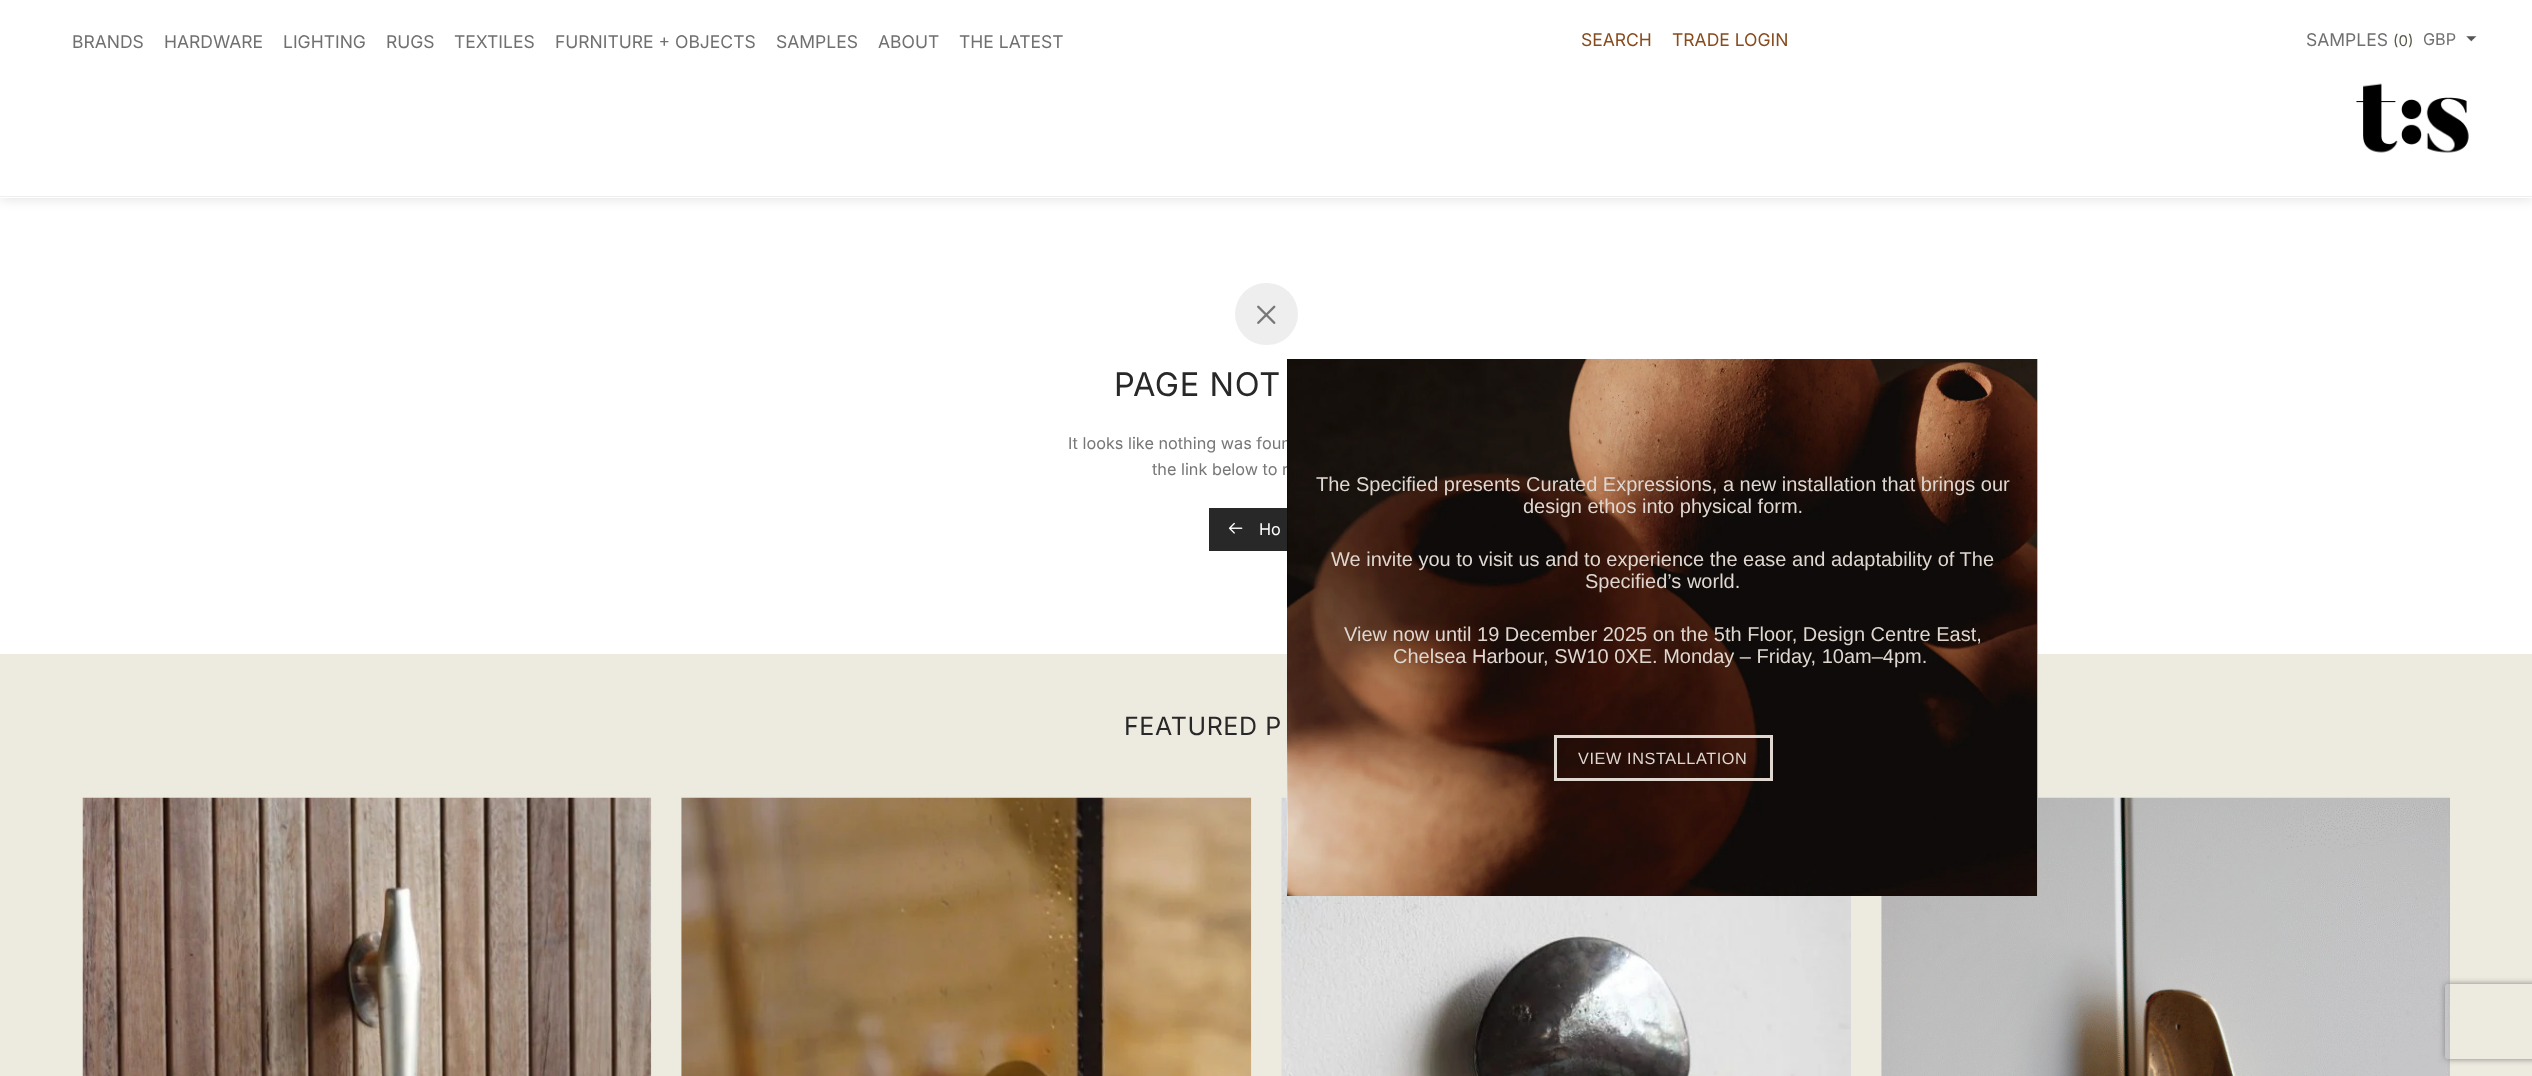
<svg xmlns="http://www.w3.org/2000/svg" width="2532" height="1076">
<defs>
<clipPath id="clip1"><path d="M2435 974h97v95h-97zm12.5 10h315c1.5 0 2.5 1 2.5 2.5v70c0 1.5-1 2.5-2.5 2.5h-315c-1.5 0-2.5-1-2.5-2.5v-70c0-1.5 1-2.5 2.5-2.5z" clip-rule="evenodd"/></clipPath>
</defs>
<rect width="100%" height="100%" fill="#edeadf"/>
<rect y="198" width="2532" height="456" fill="#fff"/>
<rect y="3" width="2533" height="197" fill="#0000001a" filter="blur(6px)"/>
<rect width="2532" height="198" fill="#fff"/>
<rect y="196" width="2532" height="1" fill="#eee"/>
<text x="72" y="48" style="font-family:Inter;font-size:17.5px;fill:#707070">BRANDS</text>
<text x="164" y="48" style="font-family:Inter;font-size:17.5px;fill:#707070">HARDWARE</text>
<text x="283" y="48" style="font-family:Inter;font-size:17.5px;fill:#707070">LIGHTING</text>
<text x="386" y="48" style="font-family:Inter;font-size:17.5px;fill:#707070">RUGS</text>
<text x="454" y="48" style="font-family:Inter;font-size:17.5px;fill:#707070">TEXTILES</text>
<text x="555" y="48" style="font-family:Inter;font-size:17.5px;fill:#707070">FURNITURE + OBJECTS</text>
<text x="776" y="48" style="font-family:Inter;font-size:17.5px;fill:#707070">SAMPLES</text>
<text x="878" y="48" style="font-family:Inter;font-size:17.5px;fill:#707070">ABOUT</text>
<text x="959" y="48" style="font-family:Inter;font-size:17.5px;fill:#707070">THE LATEST</text>
<text x="1581" y="46" style="font-family:Inter;font-size:17.5px;fill:#874b1e">SEARCH</text>
<text x="1672" y="46" style="font-family:Inter;font-size:17.5px;fill:#874b1e">TRADE LOGIN</text>
<text x="2306" y="46" style="font-family:Inter;font-size:17.5px;fill:#707070">SAMPLES</text>
<text x="2393" y="46" style="font-family:Inter;font-size:15px;fill:#585949">(0)</text>
<image x="2466" y="36" width="11" height="6" href="media/1.png"/>
<text x="2423" y="45" style="font-family:Inter;font-size:16.25px;fill:#707070">GBP</text>
<image x="2356" y="83" width="113" height="70" href="media/2.png"/>
<rect x="1235" y="283" width="63" height="62" rx="31" fill="#eee"/>
<image x="1257" y="305" width="19" height="19" href="media/3.png"/>
<text x="1114" y="396" style="font-family:Inter;font-size:32.5px;letter-spacing:0.6px;fill:#282828">PAGE NOT</text>
<text x="1068" y="449" style="font-family:Inter;font-size:16.25px;fill:#777">It looks like nothing was foun</text>
<text x="1152" y="475" style="font-family:Inter;font-size:16.25px;fill:#777">the link below to r</text>
<rect x="1209" y="508" width="78" height="43" fill="#282828"/>
<image x="1228" y="522" width="15" height="12" href="media/4.png"/>
<text x="1259" y="535" style="font-family:Inter;font-size:16.25px;fill:#fff">Ho</text>
<text x="1124" y="735" style="font-family:Inter;font-size:25px;letter-spacing:0.6px;fill:#282828">FEATURED P</text>
<image x="82" y="797" width="570" height="279" href="media/5.png"/>
<image x="681" y="797" width="571" height="279" href="media/6.png"/>
<image x="1281" y="797" width="570" height="279" href="media/7.png"/>
<image x="1881" y="797" width="569" height="279" href="media/8.png"/>
<rect x="2037" y="359" width="1" height="537" fill="#b9b4a8f2"/>
<image x="1287" y="359" width="750" height="537" href="media/9.png"/>
<text x="1316" y="491" style="font-family:Liberation Sans;font-size:20px;fill:#dfd7d0">The Specified presents Curated Expressions, a new installation that brings our</text>
<text x="1523" y="513" style="font-family:Liberation Sans;font-size:20px;fill:#dfd7d0">design ethos into physical form.</text>
<text x="1331" y="566" style="font-family:Liberation Sans;font-size:20px;fill:#dfd7d0">We invite you to visit us and to experience the ease and adaptability of The</text>
<text x="1585" y="588" style="font-family:Liberation Sans;font-size:20px;fill:#dfd7d0">Specified’s world.</text>
<text x="1344" y="641" style="font-family:Liberation Sans;font-size:20px;fill:#dfd7d0">View now until 19 December 2025 on the 5th Floor, Design Centre East,</text>
<text x="1393" y="663" style="font-family:Liberation Sans;font-size:20px;fill:#dfd7d0">Chelsea Harbour, SW10 0XE. Monday – Friday, 10am–4pm.</text>
<rect x="1555.5" y="736.5" width="216" height="43" fill="none" stroke="#dfd7d0" stroke-width="3"/>
<text x="1578" y="764" style="font-family:Liberation Sans;font-size:16.25px;letter-spacing:0.6px;fill:#dfd7d0">VIEW INSTALLATION</text>
<g clip-path="url(#clip1)">
<rect x="2445" y="984" width="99" height="75" rx="2.5" fill="#808080" filter="blur(3px)"/>
</g>
</svg>
